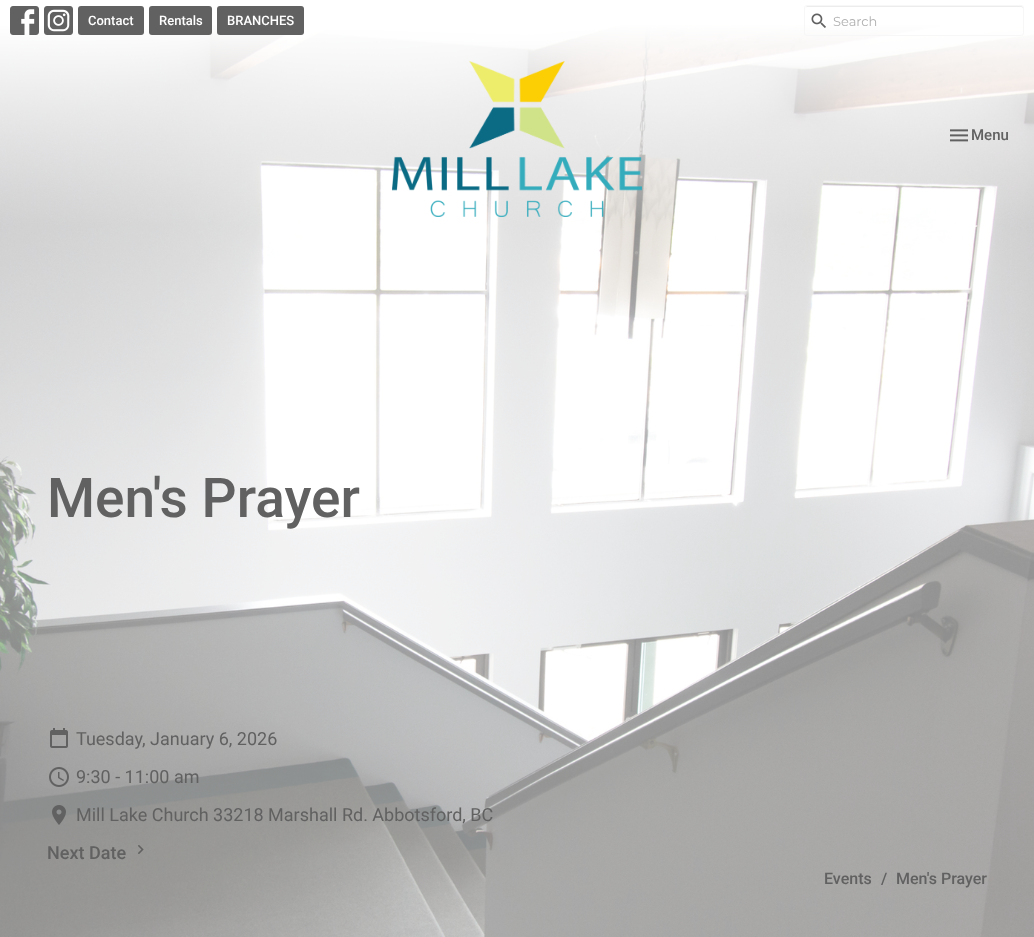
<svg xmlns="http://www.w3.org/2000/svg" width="1034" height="937">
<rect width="100%" height="100%" fill="#fff"/>
<image x="0" y="0" width="1034" height="937" href="media/6.png"/>
<image x="10" y="6" width="29" height="29" href="media/1.png"/>
<image x="44" y="6" width="29" height="29" href="media/2.png"/>
<rect x="78" y="6" width="66" height="29" rx="3" fill="#616161"/>
<text x="88" y="25" style="font-family:Roboto;font-size:13px;font-weight:500;fill:#fff">Contact</text>
<rect x="149" y="6" width="63" height="29" rx="3" fill="#616161"/>
<text x="159" y="25" style="font-family:Roboto;font-size:13px;font-weight:500;fill:#fff">Rentals</text>
<rect x="217" y="6" width="87" height="29" rx="3" fill="#616161"/>
<text x="227" y="25" style="font-family:Roboto;font-size:13px;font-weight:500;fill:#fff">BRANCHES</text>
<path d="M807 7h214c1 0 2 1 2 2c0-1 0-3-2-3h-214l-1 1l-1 2c0-1 1-2 2-2z" fill="#ececec"/>
<rect x="804.5" y="5.5" width="219" height="30" rx="2.5" fill="none" stroke="#f7f7f7"/>
<image x="811" y="13" width="15" height="15" href="media/3.png"/>
<text x="833" y="26" style="font-family:Montserrat;font-size:13px;fill:#b0b0b0">Search</text>
<image x="392" y="61" width="250" height="156" href="media/4.png"/>
<image x="950" y="129" width="18" height="13" href="media/5.png"/>
<text x="971" y="140" style="font-family:Roboto;font-size:15px;font-weight:500;fill:#616161">Menu</text>
<text x="47" y="517" style="font-family:Roboto;font-size:55px;font-weight:500;fill:#616161">Men's Prayer</text>
<image x="50" y="728" width="18" height="20" href="media/7.png"/>
<text x="76" y="745" style="font-family:Roboto;font-size:18px;fill:#616161">Tuesday, January 6, 2026</text>
<image x="49" y="767" width="20" height="20" href="media/8.png"/>
<text x="76" y="783" style="font-family:Roboto;font-size:18px;fill:#616161">9:30 - 11:00 am</text>
<image x="52" y="805" width="14" height="20" href="media/9.png"/>
<text x="76" y="821" style="font-family:Roboto;font-size:18px;fill:#616161">Mill Lake Church 33218 Marshall Rd. Abbotsford, BC</text>
<text x="47" y="859" style="font-family:Roboto;font-size:18px;font-weight:500;fill:#616161">Next Date</text>
<image x="138" y="845" width="6" height="9" href="media/10.png"/>
<text x="824" y="884" style="font-family:Roboto;font-size:16px;font-weight:500;fill:#616161">Events</text>
<text x="881" y="884" style="font-family:Roboto;font-size:16px;font-weight:500;fill:#616161">/</text>
<text x="896" y="884" style="font-family:Roboto;font-size:16px;font-weight:500;fill:#616161">Men's Prayer</text>
</svg>
